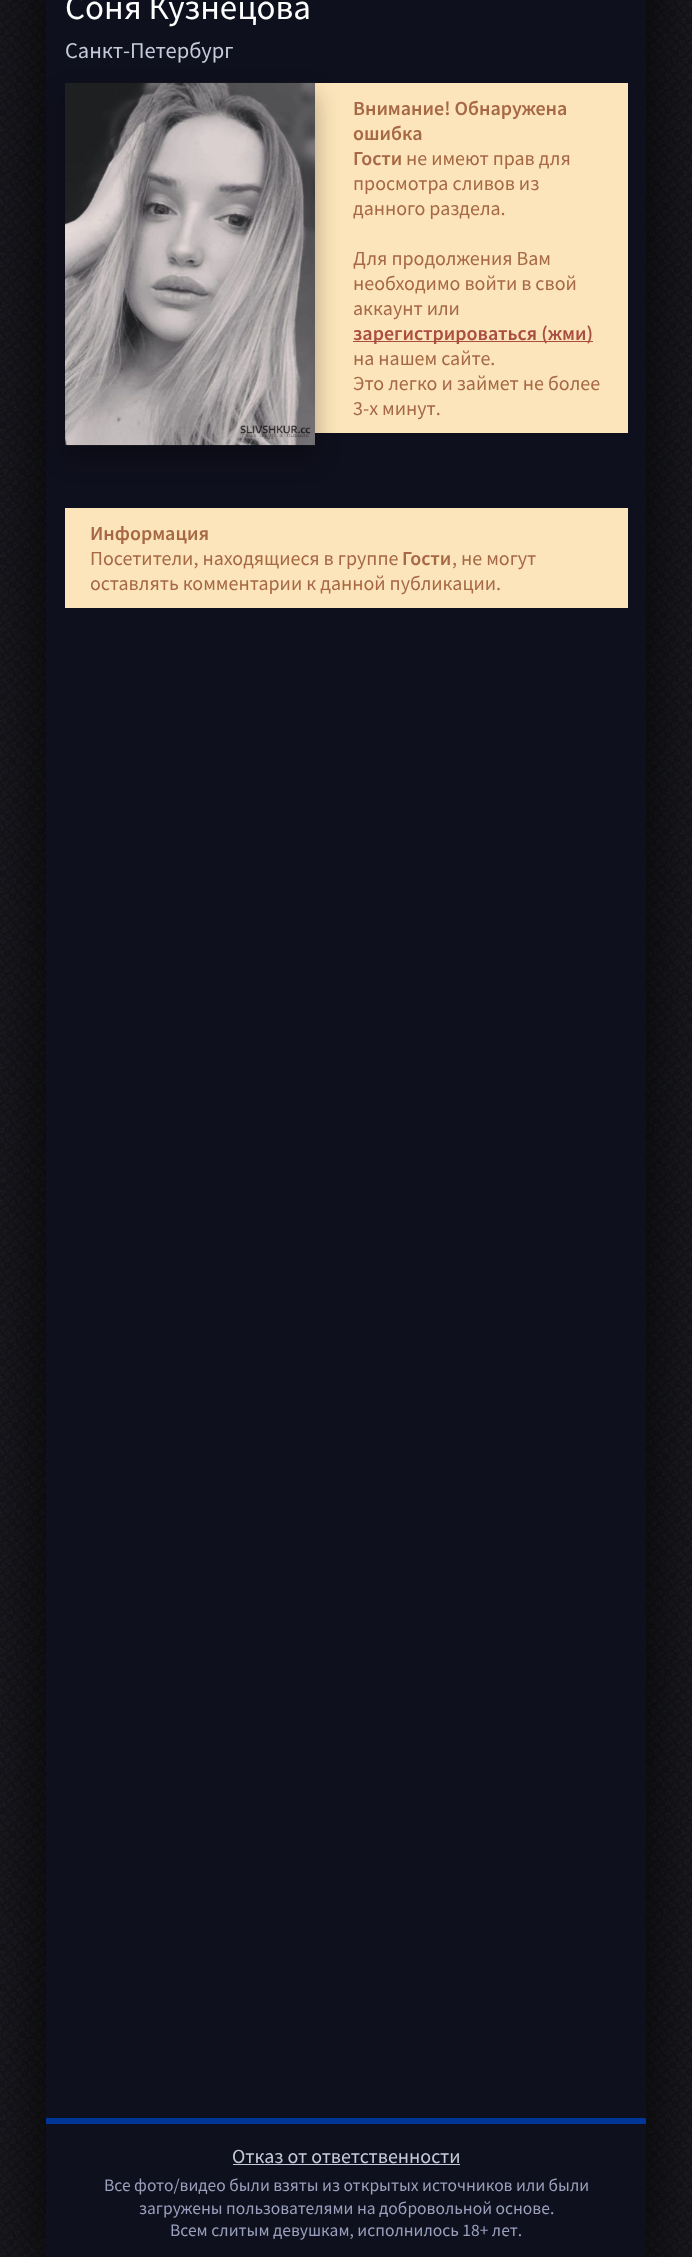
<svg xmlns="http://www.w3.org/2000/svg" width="692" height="2257">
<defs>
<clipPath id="clip1"><rect x="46" y="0" width="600" height="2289"/></clipPath>
</defs>
<rect width="100%" height="100%" fill="#fff"/>
<image x="0" y="0" width="692" height="2257" href="media/1.png"/>
<rect x="46" y="-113" width="600" height="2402" fill="#000000e6" filter="blur(37.5px)"/>
<rect x="46" width="600" height="2257" fill="#0f101d"/>
<text x="65" y="19" style="font-family:Source Sans Pro;font-size:35px;fill:#fff">Соня Кузнецова</text>
<text x="65" y="58" style="font-family:Source Sans Pro;font-size:22.5px;fill:#c5cbda">Санкт-Петербург</text>
<rect x="315" y="83" width="313" height="350" fill="#fce5ba"/>
<rect x="353" y="341" width="240" height="1" fill="#aa4e43"/>
<g clip-path="url(#clip1)">
<rect x="65" y="95" width="250" height="363" fill="#0000004d" filter="blur(12.5px)"/>
</g>
<image x="65" y="82" width="250" height="364" href="media/2.png"/>
<text x="353" y="115" style="font-family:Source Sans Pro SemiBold;font-size:20px;font-weight:600;fill:#a76846">Внимание! Обнаружена</text>
<text x="353" y="140" style="font-family:Source Sans Pro SemiBold;font-size:20px;font-weight:600;fill:#a76846">ошибка</text>
<text x="353" y="165" style="font-family:Source Sans Pro SemiBold;font-size:20px;font-weight:600;fill:#a76846">Гости</text>
<text x="406" y="165" style="font-family:Source Sans Pro;font-size:20px;fill:#a76846">не имеют прав для</text>
<text x="353" y="190" style="font-family:Source Sans Pro;font-size:20px;fill:#a76846">просмотра сливов из</text>
<text x="353" y="215" style="font-family:Source Sans Pro;font-size:20px;fill:#a76846">данного раздела.</text>
<text x="353" y="265" style="font-family:Source Sans Pro;font-size:20px;fill:#a76846">Для продолжения Вам</text>
<text x="353" y="290" style="font-family:Source Sans Pro;font-size:20px;fill:#a76846">необходимо войти в свой</text>
<text x="353" y="315" style="font-family:Source Sans Pro;font-size:20px;fill:#a76846">аккаунт или</text>
<text x="353" y="340" style="font-family:Source Sans Pro SemiBold;font-size:20px;font-weight:600;fill:#aa4e43">зарегистрироваться (жми)</text>
<text x="353" y="365" style="font-family:Source Sans Pro;font-size:20px;fill:#a76846">на нашем сайте.</text>
<text x="353" y="390" style="font-family:Source Sans Pro;font-size:20px;fill:#a76846">Это легко и займет не более</text>
<text x="353" y="415" style="font-family:Source Sans Pro;font-size:20px;fill:#a76846">3-х минут.</text>
<rect x="65" y="508" width="563" height="100" fill="#fce5ba"/>
<text x="90" y="540" style="font-family:Source Sans Pro SemiBold;font-size:20px;font-weight:600;fill:#a76846">Информация</text>
<text x="90" y="565" style="font-family:Source Sans Pro;font-size:20px;fill:#a76846">Посетители, находящиеся в группе</text>
<text x="402" y="565" style="font-family:Source Sans Pro SemiBold;font-size:20px;font-weight:600;fill:#a76846">Гости</text>
<text x="452" y="565" style="font-family:Source Sans Pro;font-size:20px;fill:#a76846">, не могут</text>
<text x="90" y="590" style="font-family:Source Sans Pro;font-size:20px;fill:#a76846">оставлять комментарии к данной публикации.</text>
<rect x="46" y="2118" width="600" height="6" fill="#003697"/>
<text x="232" y="2163" style="font-family:Source Sans Pro;font-size:20px;fill:#c5cbda">Отказ от ответственности</text>
<rect x="233" y="2164" width="227" height="1" fill="#c5cbda"/>
<text x="104" y="2191" style="font-family:Source Sans Pro;font-size:17.5px;fill:#999fbc">Все фото/видео были взяты из открытых источников или были</text>
<text x="139" y="2214" style="font-family:Source Sans Pro;font-size:17.5px;fill:#999fbc">загружены пользователями на добровольной основе.</text>
<text x="170" y="2236" style="font-family:Source Sans Pro;font-size:17.5px;fill:#999fbc">Всем слитым девушкам, исполнилось 18+ лет.</text>
</svg>
